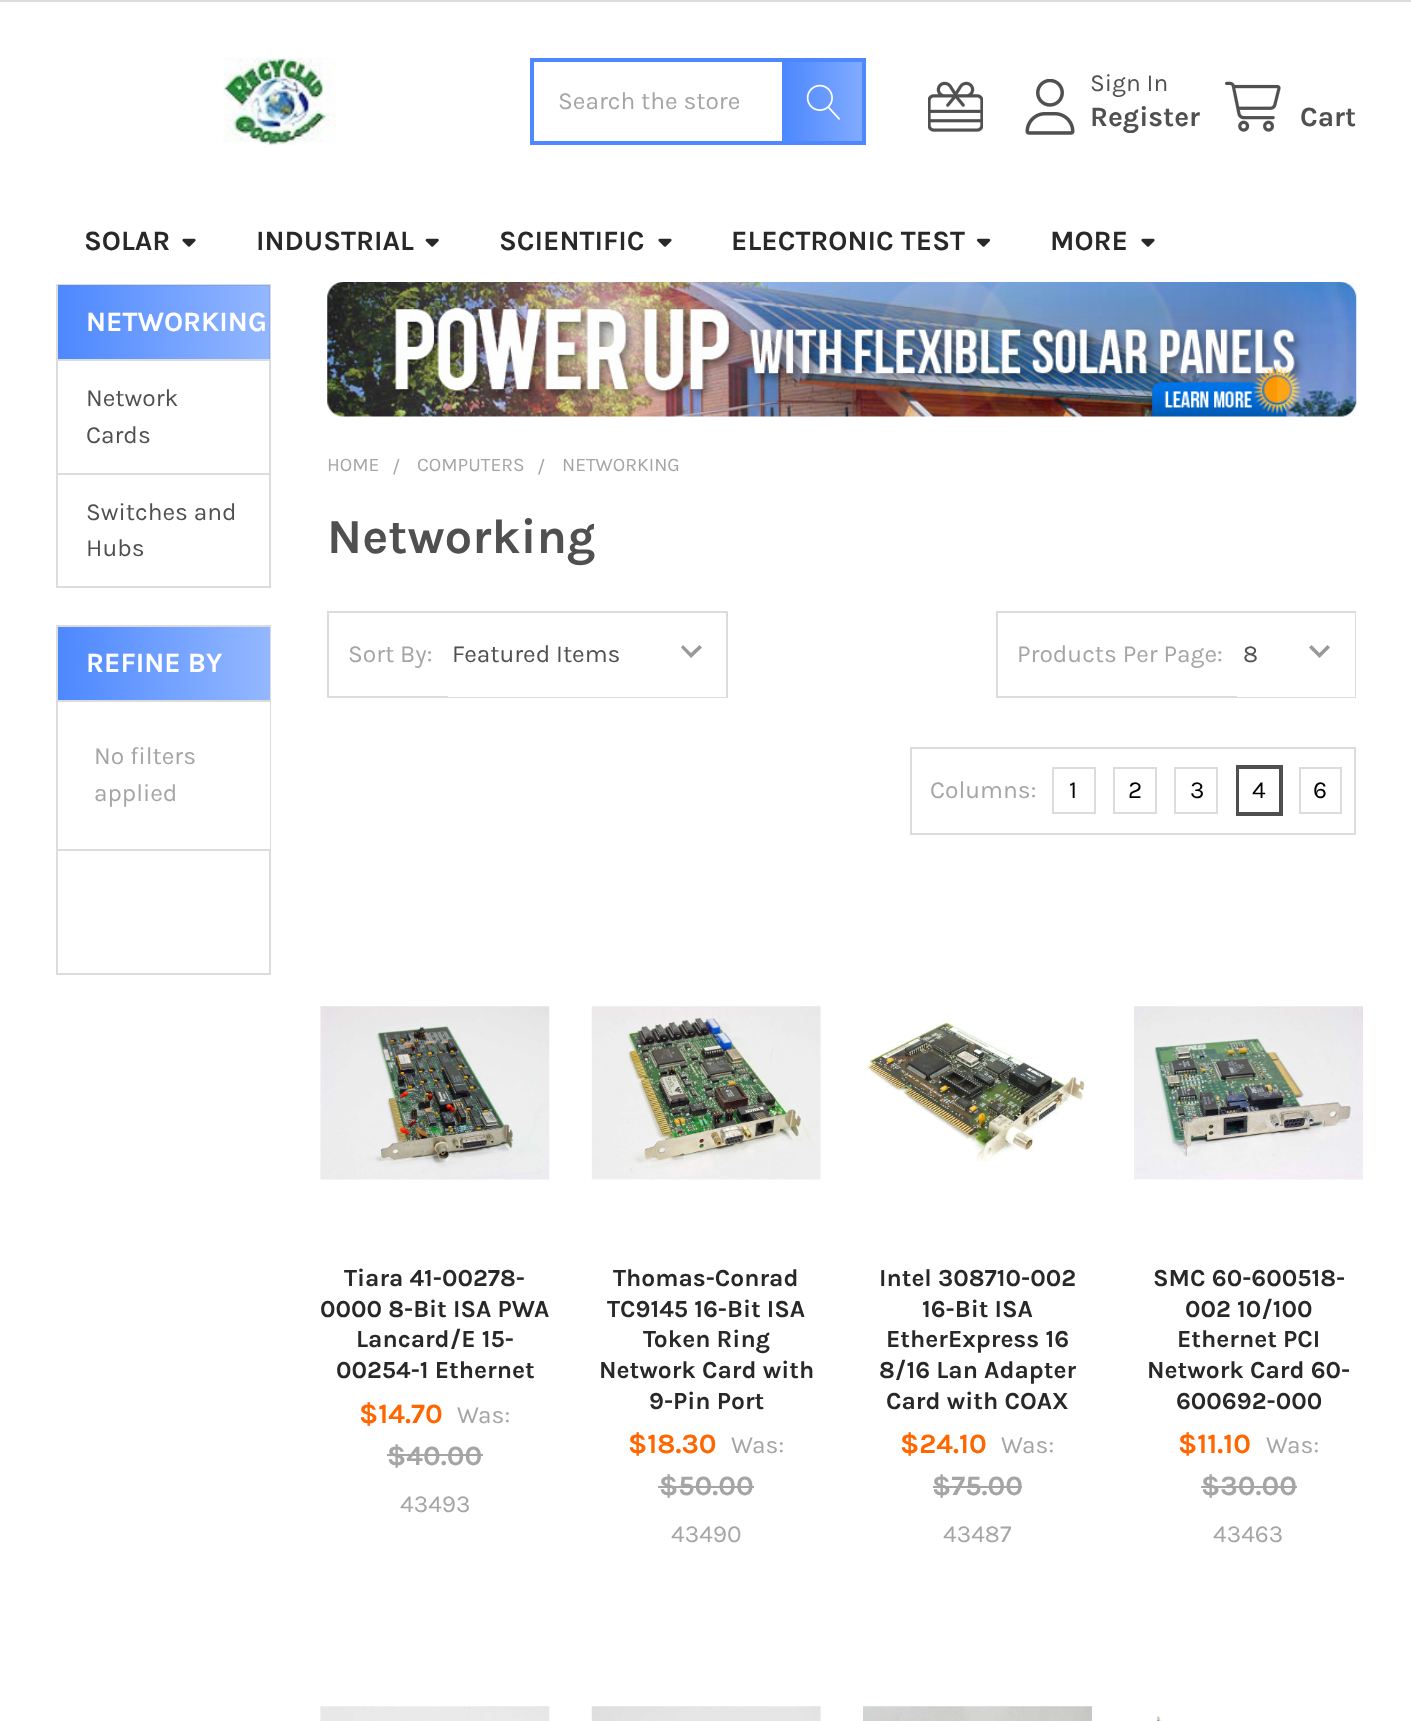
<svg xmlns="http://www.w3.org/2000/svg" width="1411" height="1721">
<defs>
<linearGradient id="g1" gradientUnits="userSpaceOnUse" x1="782" y1="102" x2="866" y2="102"><stop offset="0" stop-color="#4d88ff"/><stop offset="1" stop-color="#4d88ff" stop-opacity="0.7"/></linearGradient>
<linearGradient id="g2" gradientUnits="userSpaceOnUse" x1="58" y1="322" x2="270" y2="322"><stop offset="0" stop-color="#4d88ff"/><stop offset="1" stop-color="#4d88ff" stop-opacity="0.6"/></linearGradient>
<linearGradient id="g3" gradientUnits="userSpaceOnUse" x1="58" y1="663" x2="270" y2="663"><stop offset="0" stop-color="#4d88ff"/><stop offset="1" stop-color="#94b8ff"/></linearGradient>
</defs>
<rect width="100%" height="100%" fill="#fff"/>
<rect width="1411" height="2" fill="#dcdcdc"/>
<image x="223" y="57" width="113" height="89" href="media/1.png"/>
<rect x="532" y="60" width="332" height="83" fill="none" stroke="#4d88ff" stroke-width="4"/>
<text x="558" y="109" style="font-family:Karla;font-size:24.5px;fill:#a5a5a5">Search the store</text>
<rect x="782" y="62" width="80" height="79" fill="url(#g1)"/>
<image x="806" y="84" width="34" height="36" href="media/2.png"/>
<image x="928" y="81" width="55" height="51" href="media/3.png"/>
<image x="1025" y="79" width="50" height="56" href="media/4.png"/>
<text x="1090" y="91" style="font-family:Karla;font-size:24.5px;fill:#505050">Sign In</text>
<text x="1090" y="126" style="font-family:Karla;font-size:28px;font-weight:bold;fill:#505050">Register</text>
<image x="1225" y="81" width="56" height="51" href="media/5.png"/>
<text x="1300" y="126" style="font-family:Karla;font-size:28px;font-weight:bold;fill:#505050">Cart</text>
<image x="327" y="281" width="1030" height="136" href="media/9.png"/>
<rect x="337" y="281" width="1009" height="1" fill="#fff"/>
<text x="84" y="250" style="font-family:Karla;font-size:28px;font-weight:bold;fill:#282828">SOLAR</text>
<image x="182" y="238" width="14" height="9" href="media/6.png"/>
<text x="256" y="250" style="font-family:Karla;font-size:28px;font-weight:bold;fill:#282828">INDUSTRIAL</text>
<image x="425" y="238" width="14" height="9" href="media/7.png"/>
<text x="499" y="250" style="font-family:Karla;font-size:28px;font-weight:bold;fill:#282828">SCIENTIFIC</text>
<image x="658" y="238" width="14" height="9" href="media/6.png"/>
<text x="731" y="250" style="font-family:Karla;font-size:28px;font-weight:bold;fill:#282828">ELECTRONIC TEST</text>
<image x="976" y="238" width="15" height="9" href="media/8.png"/>
<text x="1050" y="250" style="font-family:Karla;font-size:28px;font-weight:bold;fill:#282828">MORE</text>
<image x="1141" y="238" width="14" height="9" href="media/6.png"/>
<rect x="57" y="285" width="213" height="302" fill="none" stroke="#dcdcdc" stroke-width="2"/>
<rect x="58" y="285" width="212" height="74" fill="url(#g2)"/>
<rect x="58" y="359" width="212" height="2" fill="#dcdcdc"/>
<text x="86" y="331" style="font-family:Karla;font-size:28px;font-weight:bold;fill:#fff">NETWORKING</text>
<text x="86" y="406" style="font-family:Karla;font-size:24.5px;fill:#505050">Network</text>
<text x="86" y="443" style="font-family:Karla;font-size:24.5px;fill:#505050">Cards</text>
<rect x="58" y="473" width="212" height="2" fill="#dcdcdc"/>
<text x="86" y="520" style="font-family:Karla;font-size:24.5px;fill:#505050">Switches and</text>
<text x="86" y="556" style="font-family:Karla;font-size:24.5px;fill:#505050">Hubs</text>
<rect x="57" y="626" width="213" height="348" fill="none" stroke="#dcdcdc" stroke-width="2"/>
<rect x="269" y="702" width="1" height="147" fill="#fff"/>
<rect x="58" y="849" width="212" height="2" fill="#dcdcdc"/>
<rect x="58" y="627" width="212" height="73" fill="url(#g3)"/>
<rect x="58" y="700" width="212" height="2" fill="#dcdcdc"/>
<text x="86" y="672" style="font-family:Karla;font-size:28px;font-weight:bold;fill:#fff">REFINE BY</text>
<text x="94" y="764" style="font-family:Karla;font-size:24.5px;fill:#a5a5a5">No filters</text>
<text x="94" y="801" style="font-family:Karla;font-size:24.5px;fill:#a5a5a5">applied</text>
<text x="327" y="471" style="font-family:Karla;font-size:19.25px;fill:#a5a5a5">HOME</text>
<text x="392" y="473" style="font-family:Karla;font-size:19.25px;fill:#a5a5a5">/</text>
<text x="417" y="471" style="font-family:Karla;font-size:19.25px;fill:#a5a5a5">COMPUTERS</text>
<text x="537" y="473" style="font-family:Karla;font-size:19.25px;fill:#a5a5a5">/</text>
<text x="562" y="471" style="font-family:Karla;font-size:19.25px;fill:#a5a5a5">NETWORKING</text>
<text x="327" y="553" style="font-family:Karla;font-size:49px;font-weight:bold;fill:#505050">Networking</text>
<rect x="328" y="612" width="399" height="85" fill="none" stroke="#dcdcdc" stroke-width="2"/>
<text x="348" y="662" style="font-family:Karla;font-size:24.5px;fill:#a5a5a5">Sort By:</text>
<rect x="448" y="696" width="278" height="1" fill="#fff"/>
<path d="M699.5 645l-8.5 8l-8-8l-2 2.5l10 10.5l11-10.5z" fill="#999"/>
<text x="452" y="662" style="font-family:Karla;font-size:24.5px;fill:#505050">Featured Items</text>
<rect x="997" y="612" width="358" height="85" fill="none" stroke="#dcdcdc" stroke-width="2"/>
<text x="1017" y="662" style="font-family:Karla;font-size:24.5px;fill:#a5a5a5">Products Per Page:</text>
<rect x="1237" y="613" width="118" height="84" fill="#fff"/>
<path d="M1327.5 645l-8 8l-8-8l-2.5 2.5l10.5 10.5l10.5-10.5z" fill="#999"/>
<text x="1243" y="662" style="font-family:Karla;font-size:24.5px;fill:#505050">8</text>
<rect x="911" y="748" width="444" height="86" fill="none" stroke="#dcdcdc" stroke-width="2"/>
<text x="930" y="798" style="font-family:Karla;font-size:24.5px;fill:#a5a5a5">Columns:</text>
<rect x="1053" y="768" width="42" height="45" fill="none" stroke="#dcdcdc" stroke-width="2"/>
<text x="1069" y="798" style="font-family:Karla;font-size:24.5px;fill:#000">1</text>
<rect x="1114" y="768" width="42" height="45" fill="none" stroke="#dcdcdc" stroke-width="2"/>
<text x="1128" y="798" style="font-family:Karla;font-size:24.5px;fill:#000">2</text>
<rect x="1175" y="768" width="42" height="45" fill="none" stroke="#dcdcdc" stroke-width="2"/>
<text x="1190" y="798" style="font-family:Karla;font-size:24.5px;fill:#000">3</text>
<rect x="1237" y="766" width="45" height="49" fill="none" stroke="#4f4f4f" stroke-width="2"/>
<rect x="1238" y="768" width="42" height="45" fill="none" stroke="#4f4f4f" stroke-width="2"/>
<text x="1252" y="798" style="font-family:Karla;font-size:24.5px;fill:#000">4</text>
<rect x="1300" y="768" width="41" height="45" fill="none" stroke="#dcdcdc" stroke-width="2"/>
<text x="1313" y="798" style="font-family:Karla;font-size:24.5px;fill:#000">6</text>
<image x="320" y="1006" width="230" height="174" href="media/10.png"/>
<text x="344" y="1286" style="font-family:Karla;font-size:24.5px;font-weight:bold;fill:#282828">Tiara 41-00278-</text>
<text x="320" y="1317" style="font-family:Karla;font-size:24.5px;font-weight:bold;fill:#282828">0000 8-Bit ISA PWA</text>
<text x="356" y="1347" style="font-family:Karla;font-size:24.5px;font-weight:bold;fill:#282828">Lancard/E 15-</text>
<text x="336" y="1378" style="font-family:Karla;font-size:24.5px;font-weight:bold;fill:#282828">00254-1 Ethernet</text>
<text x="359" y="1423" style="font-family:Karla;font-size:28px;font-weight:bold;fill:#f60">$14.70</text>
<text x="457" y="1423" style="font-family:Karla;font-size:24.5px;fill:#a5a5a5">Was:</text>
<text x="387" y="1465" style="font-family:Karla;font-size:28px;font-weight:bold;fill:#a5a5a5">$40.00</text>
<rect x="387" y="1454" width="96" height="2" fill="#a5a5a5"/>
<text x="400" y="1512" style="font-family:Karla;font-size:24.5px;fill:#a5a5a5">43493</text>
<image x="591" y="1006" width="230" height="174" href="media/11.png"/>
<text x="613" y="1286" style="font-family:Karla;font-size:24.5px;font-weight:bold;fill:#282828">Thomas-Conrad</text>
<text x="607" y="1317" style="font-family:Karla;font-size:24.5px;font-weight:bold;fill:#282828">TC9145 16-Bit ISA</text>
<text x="643" y="1347" style="font-family:Karla;font-size:24.5px;font-weight:bold;fill:#282828">Token Ring</text>
<text x="599" y="1378" style="font-family:Karla;font-size:24.5px;font-weight:bold;fill:#282828">Network Card with</text>
<text x="649" y="1409" style="font-family:Karla;font-size:24.5px;font-weight:bold;fill:#282828">9-Pin Port</text>
<text x="628" y="1453" style="font-family:Karla;font-size:28px;font-weight:bold;fill:#f60">$18.30</text>
<text x="731" y="1453" style="font-family:Karla;font-size:24.5px;fill:#a5a5a5">Was:</text>
<text x="659" y="1495" style="font-family:Karla;font-size:28px;font-weight:bold;fill:#a5a5a5">$50.00</text>
<rect x="658" y="1486" width="96" height="2" fill="#a5a5a5"/>
<text x="671" y="1542" style="font-family:Karla;font-size:24.5px;fill:#a5a5a5">43490</text>
<image x="866" y="1018" width="220" height="144" href="media/12.png"/>
<text x="879" y="1286" style="font-family:Karla;font-size:24.5px;font-weight:bold;fill:#282828">Intel 308710-002</text>
<text x="922" y="1317" style="font-family:Karla;font-size:24.5px;font-weight:bold;fill:#282828">16-Bit ISA</text>
<text x="886" y="1347" style="font-family:Karla;font-size:24.5px;font-weight:bold;fill:#282828">EtherExpress 16</text>
<text x="879" y="1378" style="font-family:Karla;font-size:24.5px;font-weight:bold;fill:#282828">8/16 Lan Adapter</text>
<text x="886" y="1409" style="font-family:Karla;font-size:24.5px;font-weight:bold;fill:#282828">Card with COAX</text>
<text x="900" y="1453" style="font-family:Karla;font-size:28px;font-weight:bold;fill:#f60">$24.10</text>
<text x="1001" y="1453" style="font-family:Karla;font-size:24.5px;fill:#a5a5a5">Was:</text>
<text x="932" y="1495" style="font-family:Karla;font-size:28px;font-weight:bold;fill:#a5a5a5">$75.00</text>
<rect x="933" y="1486" width="89" height="2" fill="#a5a5a5"/>
<text x="943" y="1542" style="font-family:Karla;font-size:24.5px;fill:#a5a5a5">43487</text>
<image x="1134" y="1006" width="229" height="174" href="media/13.png"/>
<text x="1153" y="1286" style="font-family:Karla;font-size:24.5px;font-weight:bold;fill:#282828">SMC 60-600518-</text>
<text x="1185" y="1317" style="font-family:Karla;font-size:24.5px;font-weight:bold;fill:#282828">002 10/100</text>
<text x="1177" y="1347" style="font-family:Karla;font-size:24.5px;font-weight:bold;fill:#282828">Ethernet PCI</text>
<text x="1147" y="1378" style="font-family:Karla;font-size:24.5px;font-weight:bold;fill:#282828">Network Card 60-</text>
<text x="1176" y="1409" style="font-family:Karla;font-size:24.5px;font-weight:bold;fill:#282828">600692-000</text>
<text x="1178" y="1453" style="font-family:Karla;font-size:28px;font-weight:bold;fill:#f60">$11.10</text>
<text x="1266" y="1453" style="font-family:Karla;font-size:24.5px;fill:#a5a5a5">Was:</text>
<text x="1201" y="1495" style="font-family:Karla;font-size:28px;font-weight:bold;fill:#a5a5a5">$30.00</text>
<rect x="1201" y="1486" width="96" height="2" fill="#a5a5a5"/>
<text x="1213" y="1542" style="font-family:Karla;font-size:24.5px;fill:#a5a5a5">43463</text>
<image x="320" y="1706" width="230" height="15" href="media/14.png"/>
<image x="591" y="1706" width="230" height="15" href="media/15.png"/>
<image x="863" y="1706" width="229" height="15" href="media/16.png"/>
<image x="1155" y="1716" width="8" height="5" href="media/17.png"/>
</svg>
